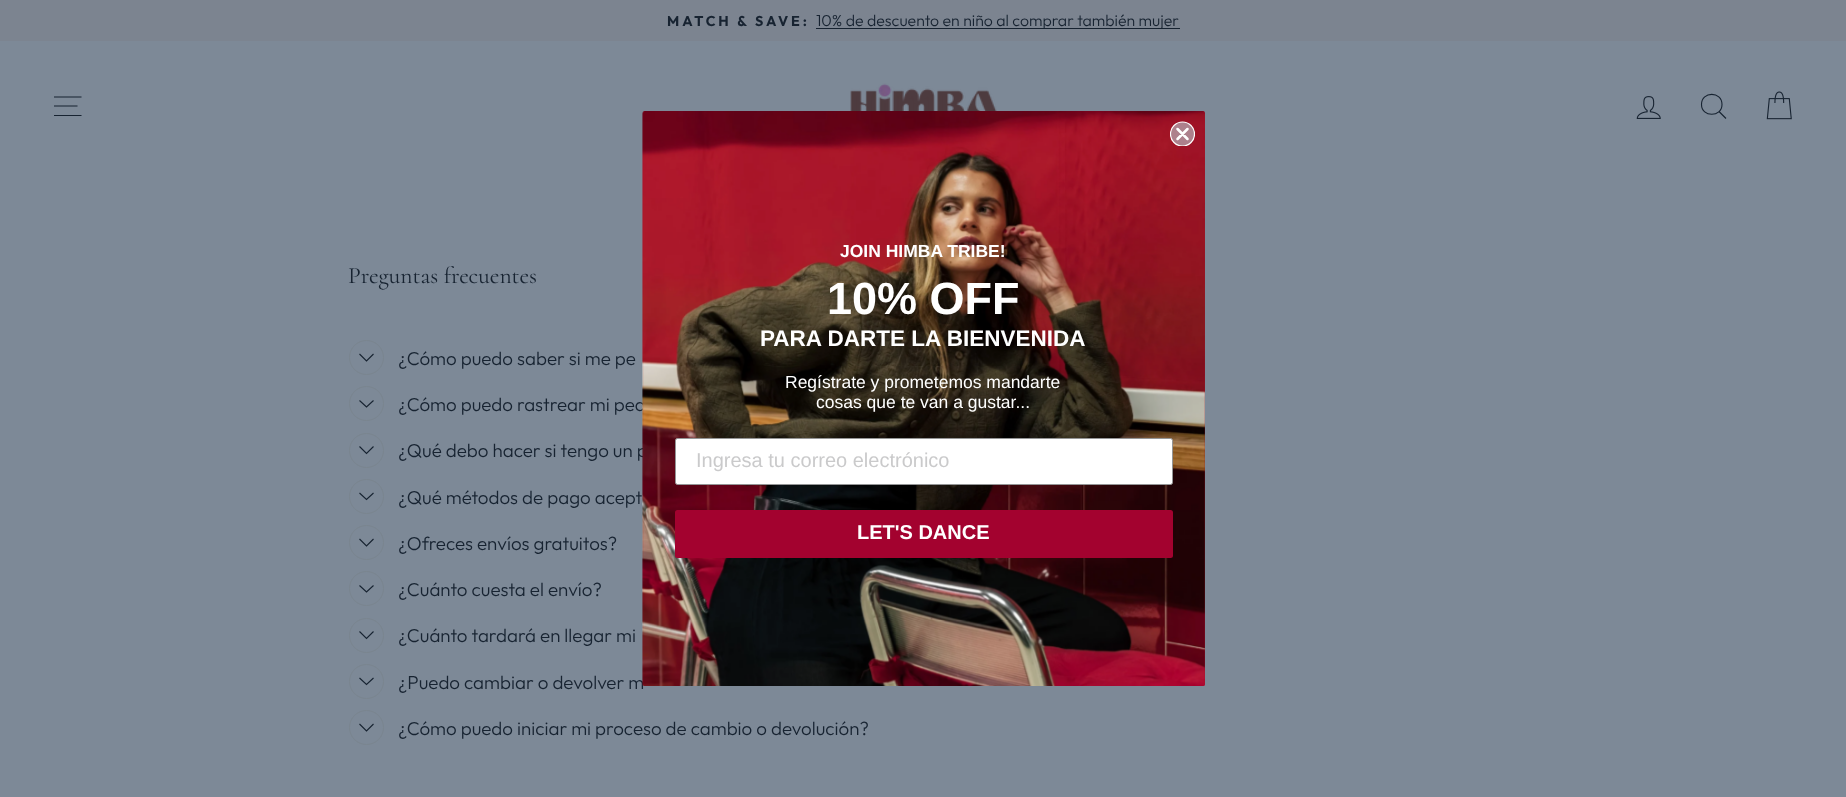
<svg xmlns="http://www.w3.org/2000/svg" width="1846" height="797">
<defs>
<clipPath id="clip1"><rect x="50" y="13" width="1746" height="16"/></clipPath>
<clipPath id="clip2"><rect x="1170" y="121" width="25" height="25"/></clipPath>
</defs>
<rect width="100%" height="100%" fill="#7d8997"/>
<rect width="1846" height="41" fill="#7c8490"/>
<text x="667" y="26" style="font-family:Outfit;font-size:14.25px;font-weight:bold;letter-spacing:2.9px;fill:#172331">MATCH &amp; SAVE:</text>
<rect x="816" y="28" width="364" height="1" fill="#172331"/>
<g clip-path="url(#clip1)">
<text x="816" y="26" style="font-family:Outfit;font-size:15.9px;font-weight:300;fill:#172331">10% de descuento en niño al comprar también mujer</text>
</g>
<path d="M54 97h27.5m-27.5 9h23.5m-23.5 9.5h27.5" fill="none" stroke="#172331" stroke-width="1.1"/>
<image x="850" y="83" width="147" height="28" href="media/1.png"/>
<image x="1636" y="96" width="25" height="23" href="media/2.png"/>
<path d="M1722 104.5c0 13-20.5 13-20.5 0c0-13.5 20.5-13.5 20.5 0zm4 14l-7-7" fill="none" stroke="#172331" stroke-width="1.1"/>
<image x="1766" y="91" width="26" height="29" href="media/3.png"/>
<text x="348" y="283" style="font-family:Cormorant;font-size:23.5px;fill:#172331">Preguntas frecuentes</text>
<circle cx="366.5" cy="357.5" r="17" fill="none" stroke="#7a858f"/>
<path d="M359.5 354l7 7l7-7" fill="none" stroke="#172331" stroke-width="1.1"/>
<text x="398" y="365" style="font-family:Outfit;font-size:18.75px;font-weight:300;fill:#172331">¿Cómo puedo saber si me pe</text>
<circle cx="366.5" cy="403.5" r="17" fill="none" stroke="#7a858f"/>
<path d="M359.5 400.5l7 6.5l7-6.5" fill="none" stroke="#172331" stroke-width="1.1"/>
<text x="398" y="411" style="font-family:Outfit;font-size:18.75px;font-weight:300;fill:#172331">¿Cómo puedo rastrear mi ped</text>
<circle cx="366.5" cy="450.5" r="17" fill="none" stroke="#7a858f"/>
<path d="M359.5 446.5l7 7l7-7" fill="none" stroke="#172331" stroke-width="1.1"/>
<text x="398" y="457" style="font-family:Outfit;font-size:18.75px;font-weight:300;fill:#172331">¿Qué debo hacer si tengo un p</text>
<circle cx="366.5" cy="496.5" r="17" fill="none" stroke="#7a858f"/>
<path d="M359.5 493l7 6.5l7-6.5" fill="none" stroke="#172331" stroke-width="1.1"/>
<text x="398" y="504" style="font-family:Outfit;font-size:18.75px;font-weight:300;fill:#172331">¿Qué métodos de pago acept</text>
<circle cx="366.5" cy="542.5" r="17" fill="none" stroke="#7a858f"/>
<path d="M359.5 539l7 7l7-7" fill="none" stroke="#172331" stroke-width="1.1"/>
<text x="398" y="550" style="font-family:Outfit;font-size:18.75px;font-weight:300;fill:#172331">¿Ofreces envíos gratuitos?</text>
<circle cx="366.5" cy="588.5" r="17" fill="none" stroke="#7a858f"/>
<path d="M359.5 585.5l7 6.5l7-6.5" fill="none" stroke="#172331" stroke-width="1.1"/>
<text x="398" y="596" style="font-family:Outfit;font-size:18.75px;font-weight:300;fill:#172331">¿Cuánto cuesta el envío?</text>
<circle cx="366.5" cy="635.5" r="17" fill="none" stroke="#7a858f"/>
<path d="M359.5 631.5l7 7l7-7" fill="none" stroke="#172331" stroke-width="1.1"/>
<text x="398" y="642" style="font-family:Outfit;font-size:18.75px;font-weight:300;fill:#172331">¿Cuánto tardará en llegar mi</text>
<circle cx="366.5" cy="681.5" r="17" fill="none" stroke="#7a858f"/>
<path d="M359.5 678l7 6.5l7-6.5" fill="none" stroke="#172331" stroke-width="1.1"/>
<text x="398" y="689" style="font-family:Outfit;font-size:18.75px;font-weight:300;fill:#172331">¿Puedo cambiar o devolver m</text>
<circle cx="366.5" cy="727.5" r="17" fill="none" stroke="#7a858f"/>
<path d="M359.5 724l7 7l7-7" fill="none" stroke="#172331" stroke-width="1.1"/>
<text x="398" y="735" style="font-family:Outfit;font-size:18.75px;font-weight:300;fill:#172331">¿Cómo puedo iniciar mi proceso de cambio o devolución?</text>
<rect x="643" y="111" width="562" height="575" rx="2.5" fill="#aa162a"/>
<image x="642" y="111" width="563" height="575" href="media/4.png"/>
<circle cx="1182.5" cy="134" r="12" fill="#b4bbc3a6"/>
<g clip-path="url(#clip2)">
<circle cx="1182.5" cy="134" r="12" fill="none" stroke="#fff" stroke-width="1.2"/>
</g>
<path d="M1177.5 129l10 10m-10 0l10-10z" fill="none" stroke="#fff" stroke-width="2.5" stroke-linecap="round" stroke-linejoin="round"/>
<text x="840" y="257" style="font-family:Liberation Sans;font-size:17.5px;font-weight:bold;fill:#fff">JOIN HIMBA TRIBE!</text>
<text x="827" y="314" style="font-family:Liberation Sans;font-size:45px;font-weight:bold;fill:#fff">10% OFF</text>
<text x="760" y="346" style="font-family:Liberation Sans;font-size:22.5px;font-weight:bold;fill:#fff">PARA DARTE LA BIENVENIDA</text>
<text x="785" y="388" style="font-family:Liberation Sans;font-size:17.5px;fill:#fff">Regístrate y prometemos mandarte</text>
<text x="816" y="408" style="font-family:Liberation Sans;font-size:17.5px;fill:#fff">cosas que te van a gustar...</text>
<rect x="675.5" y="438.5" width="497" height="46" rx="2" fill="#fff" stroke="#949596"/>
<text x="696" y="467" style="font-family:Liberation Sans;font-size:20px;fill:#cacacb">Ingresa tu correo electrónico</text>
<rect x="675" y="510" width="498" height="48" rx="2.5" fill="#a3022f"/>
<text x="857" y="539" style="font-family:Liberation Sans;font-size:20px;font-weight:bold;fill:#fff">LET'S DANCE</text>
</svg>
